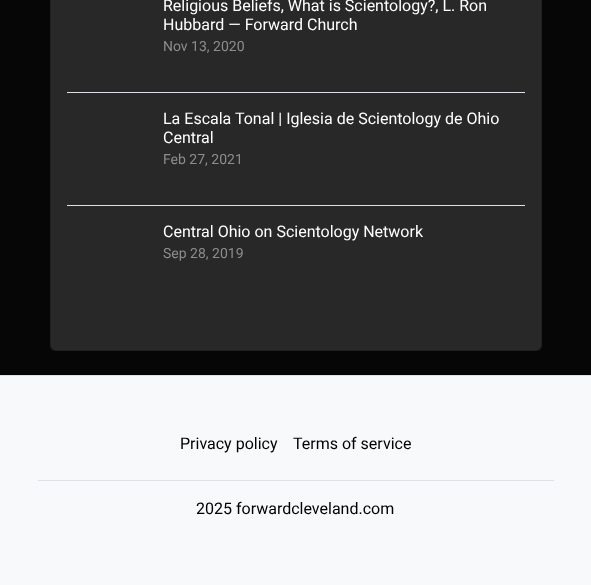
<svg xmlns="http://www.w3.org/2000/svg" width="591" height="585">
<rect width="100%" height="100%" fill="#060606"/>
<rect x="50" y="-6" width="492" height="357" rx="6" fill="#282828"/>
<rect x="50.5" y="-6.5" width="491" height="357" rx="5.5" fill="none" stroke="#0000002e"/>
<text x="163" y="11" style="font-family:Roboto;font-size:16px;fill:#fff">Religious Beliefs, What is Scientology?, L. Ron</text>
<text x="163" y="30" style="font-family:Roboto;font-size:16px;fill:#fff">Hubbard — Forward Church</text>
<text x="163" y="51" style="font-family:Roboto;font-size:14px;fill:#8c8d8d">Nov 13, 2020</text>
<rect x="67" y="92" width="458" height="1" fill="#dee2e6"/>
<text x="163" y="124" style="font-family:Roboto;font-size:16px;fill:#fff">La Escala Tonal | Iglesia de Scientology de Ohio</text>
<text x="163" y="143" style="font-family:Roboto;font-size:16px;fill:#fff">Central</text>
<text x="163" y="164" style="font-family:Roboto;font-size:14px;fill:#8c8d8d">Feb 27, 2021</text>
<rect x="67" y="205" width="458" height="1" fill="#dee2e6"/>
<text x="163" y="237" style="font-family:Roboto;font-size:16px;fill:#fff">Central Ohio on Scientology Network</text>
<text x="163" y="258" style="font-family:Roboto;font-size:14px;fill:#8c8d8d">Sep 28, 2019</text>
<rect y="376" width="591" height="209" fill="#f8f9fa"/>
<rect y="375" width="591" height="1" fill="#dee2e6"/>
<rect x="38" y="480" width="516" height="1" fill="#dee2e6"/>
<text x="180" y="449" style="font-family:Roboto;font-size:16px;fill:#000">Privacy policy</text>
<text x="293" y="449" style="font-family:Roboto;font-size:16px;fill:#000">Terms of service</text>
<text x="196" y="514" style="font-family:Roboto;font-size:16px;fill:#000">2025 forwardcleveland.com</text>
</svg>
